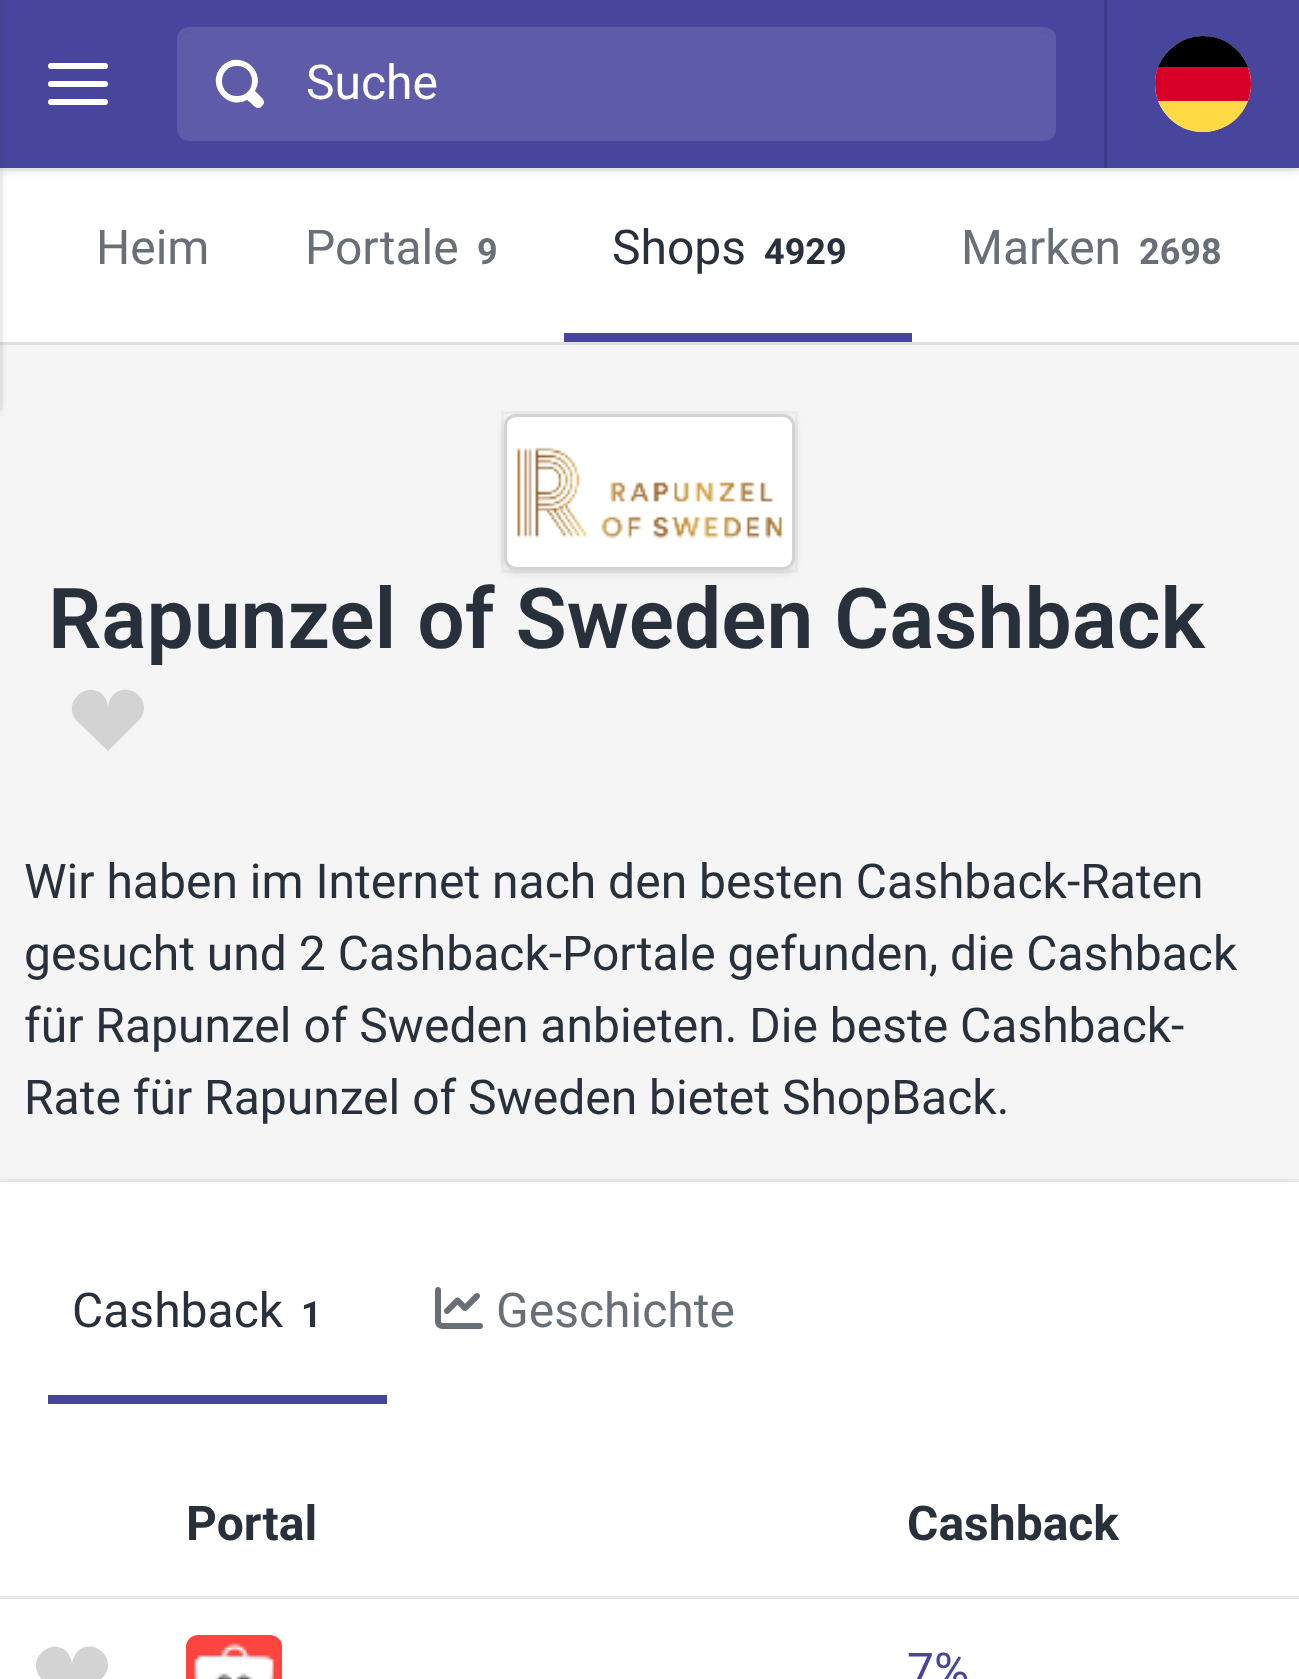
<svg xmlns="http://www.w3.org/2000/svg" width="1299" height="1679">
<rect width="100%" height="100%" fill="#f5f5f5"/>
<rect y="168" width="1299" height="174" fill="#fff"/>
<rect y="3" width="1299" height="168" fill="#3d464f26" filter="blur(4.5px)"/>
<rect x="-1.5" y="-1.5" width="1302" height="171" fill="none" stroke="#3d464f0d" stroke-width="3"/>
<rect width="1299" height="168" fill="#48459d"/>
<rect y="342" width="1299" height="3" fill="#dedfe0"/>
<rect x="-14" y="3" width="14" height="408" fill="#3d464f26" filter="blur(4.5px)"/>
<rect x="-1.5" y="-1.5" width="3" height="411" fill="none" stroke="#3d464f0d" stroke-width="3"/>
<rect x="48" y="81" width="60" height="6" rx="3" fill="#fff"/>
<rect x="48" y="63" width="60" height="6" rx="3" fill="#fff"/>
<rect x="48" y="99" width="60" height="6" rx="3" fill="#fff"/>
<rect x="177" y="27" width="879" height="114" rx="12" fill="#5e5ba9"/>
<path d="M189 33h855c5 0 9 4 9 9c0-6-2-12-9-12h-855c-7 0-9 6-9 12c0-5 4-9 9-9z" fill="#5c5aa5"/>
<path d="M222 66c17-17 45 4 33 25l4 4c3 3 8 7 3 11c-4 5-8 0-11-3l-4-3c-21 11-42-17-25-34zm15 30c20 0 20-30 0-30c-20 0-20 30 0 30z" fill="#fff"/>
<text x="306" y="99" style="font-family:Roboto;font-size:48px;fill:#fff">Suche</text>
<rect x="1104" width="3" height="168" fill="#3f3d8a"/>
<circle cx="1203" cy="84" r="48" fill="#fff"/>
<path d="M1183 128c-11-6-20-15-25-27l45-4l45 4c-10 26-40 38-65 27z" fill="#ffda44"/>
<path d="M1203 36c-20 0-38 13-45 31l45 4l45-4c-7-18-24-31-45-31z" fill="#000"/>
<path d="M1155 83c0-5 1-11 3-16h90c4 11 4 23 0 34h-90c-2-6-3-12-3-18z" fill="#d80027"/>
<text x="96" y="264" style="font-family:Roboto;font-size:48px;fill:#686f76">Heim</text>
<text x="305" y="264" style="font-family:Roboto;font-size:48px;fill:#686f76">Portale</text>
<text x="477" y="264" style="font-family:Roboto;font-size:36px;font-weight:bold;fill:#686f76">9</text>
<rect x="564" y="333" width="348" height="9" fill="#48459d"/>
<text x="612" y="264" style="font-family:Roboto;font-size:48px;fill:#28313b">Shops</text>
<text x="764" y="264" style="font-family:Roboto;font-size:36px;font-weight:bold;fill:#28313b">4929</text>
<text x="961" y="264" style="font-family:Roboto;font-size:48px;fill:#686f76">Marken</text>
<text x="1139" y="264" style="font-family:Roboto;font-size:36px;font-weight:bold;fill:#686f76">2698</text>
<rect x="504" y="417" width="291" height="156" rx="12" fill="#3d464f26" filter="blur(4.5px)"/>
<rect x="502.5" y="412.5" width="294" height="159" fill="none" stroke="#3d464f0d" stroke-width="3"/>
<rect x="505.5" y="415.5" width="288" height="153" rx="10.5" fill="#fff" stroke="#d3d3d3" stroke-width="3"/>
<image x="517" y="447" width="266" height="92" href="media/1.png"/>
<text x="48" y="648" style="font-family:Roboto;font-size:84px;font-weight:600;fill:#28313b">Rapunzel of Sweden Cashback</text>
<path d="M77 721c-16-17 9-42 26-26c3 4 5 8 5 13c0-5 2-9 5-13c16-16 41 7 27 24l-32 32z" fill="#d3d3d3"/>
<text x="24" y="898" style="font-family:Roboto;font-size:48px;fill:#28313b">Wir haben im Internet nach den besten Cashback-Raten</text>
<text x="24" y="970" style="font-family:Roboto;font-size:48px;fill:#28313b">gesucht und 2 Cashback-Portale gefunden, die Cashback</text>
<text x="24" y="1042" style="font-family:Roboto;font-size:48px;fill:#28313b">für Rapunzel of Sweden anbieten. Die beste Cashback-</text>
<text x="24" y="1114" style="font-family:Roboto;font-size:48px;fill:#28313b">Rate für Rapunzel of Sweden bietet ShopBack.</text>
<rect y="1185" width="1299" height="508" fill="#3d464f26" filter="blur(4.5px)"/>
<rect x="-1.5" y="1180.5" width="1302" height="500" fill="none" stroke="#3d464f0d" stroke-width="3"/>
<rect y="1182" width="1299" height="497" fill="#fff"/>
<rect x="48" y="1395" width="339" height="9" fill="#48459d"/>
<text x="72" y="1327" style="font-family:Roboto;font-size:48px;fill:#28313b">Cashback</text>
<text x="301" y="1327" style="font-family:Roboto;font-size:36px;font-weight:bold;fill:#28313b">1</text>
<image x="435" y="1287" width="48" height="42" href="media/2.png"/>
<text x="496" y="1327" style="font-family:Roboto;font-size:48px;fill:#686f76">Geschichte</text>
<text x="186" y="1540" style="font-family:Roboto;font-size:48px;font-weight:bold;fill:#28313b">Portal</text>
<text x="907" y="1540" style="font-family:Roboto;font-size:48px;font-weight:bold;fill:#28313b">Cashback</text>
<rect y="1596" width="1299" height="3" fill="#e8e8e9"/>
<path d="M41 1678c-16-17 9-42 26-26c3 4 5 8 5 13c0-5 2-9 5-13c16-16 41 7 27 24l-32 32z" fill="#d3d3d3"/>
<image x="186" y="1635" width="96" height="44" href="media/3.png"/>
<text x="907" y="1687" style="font-family:Roboto;font-size:48px;fill:#48459d">7%</text>
</svg>
